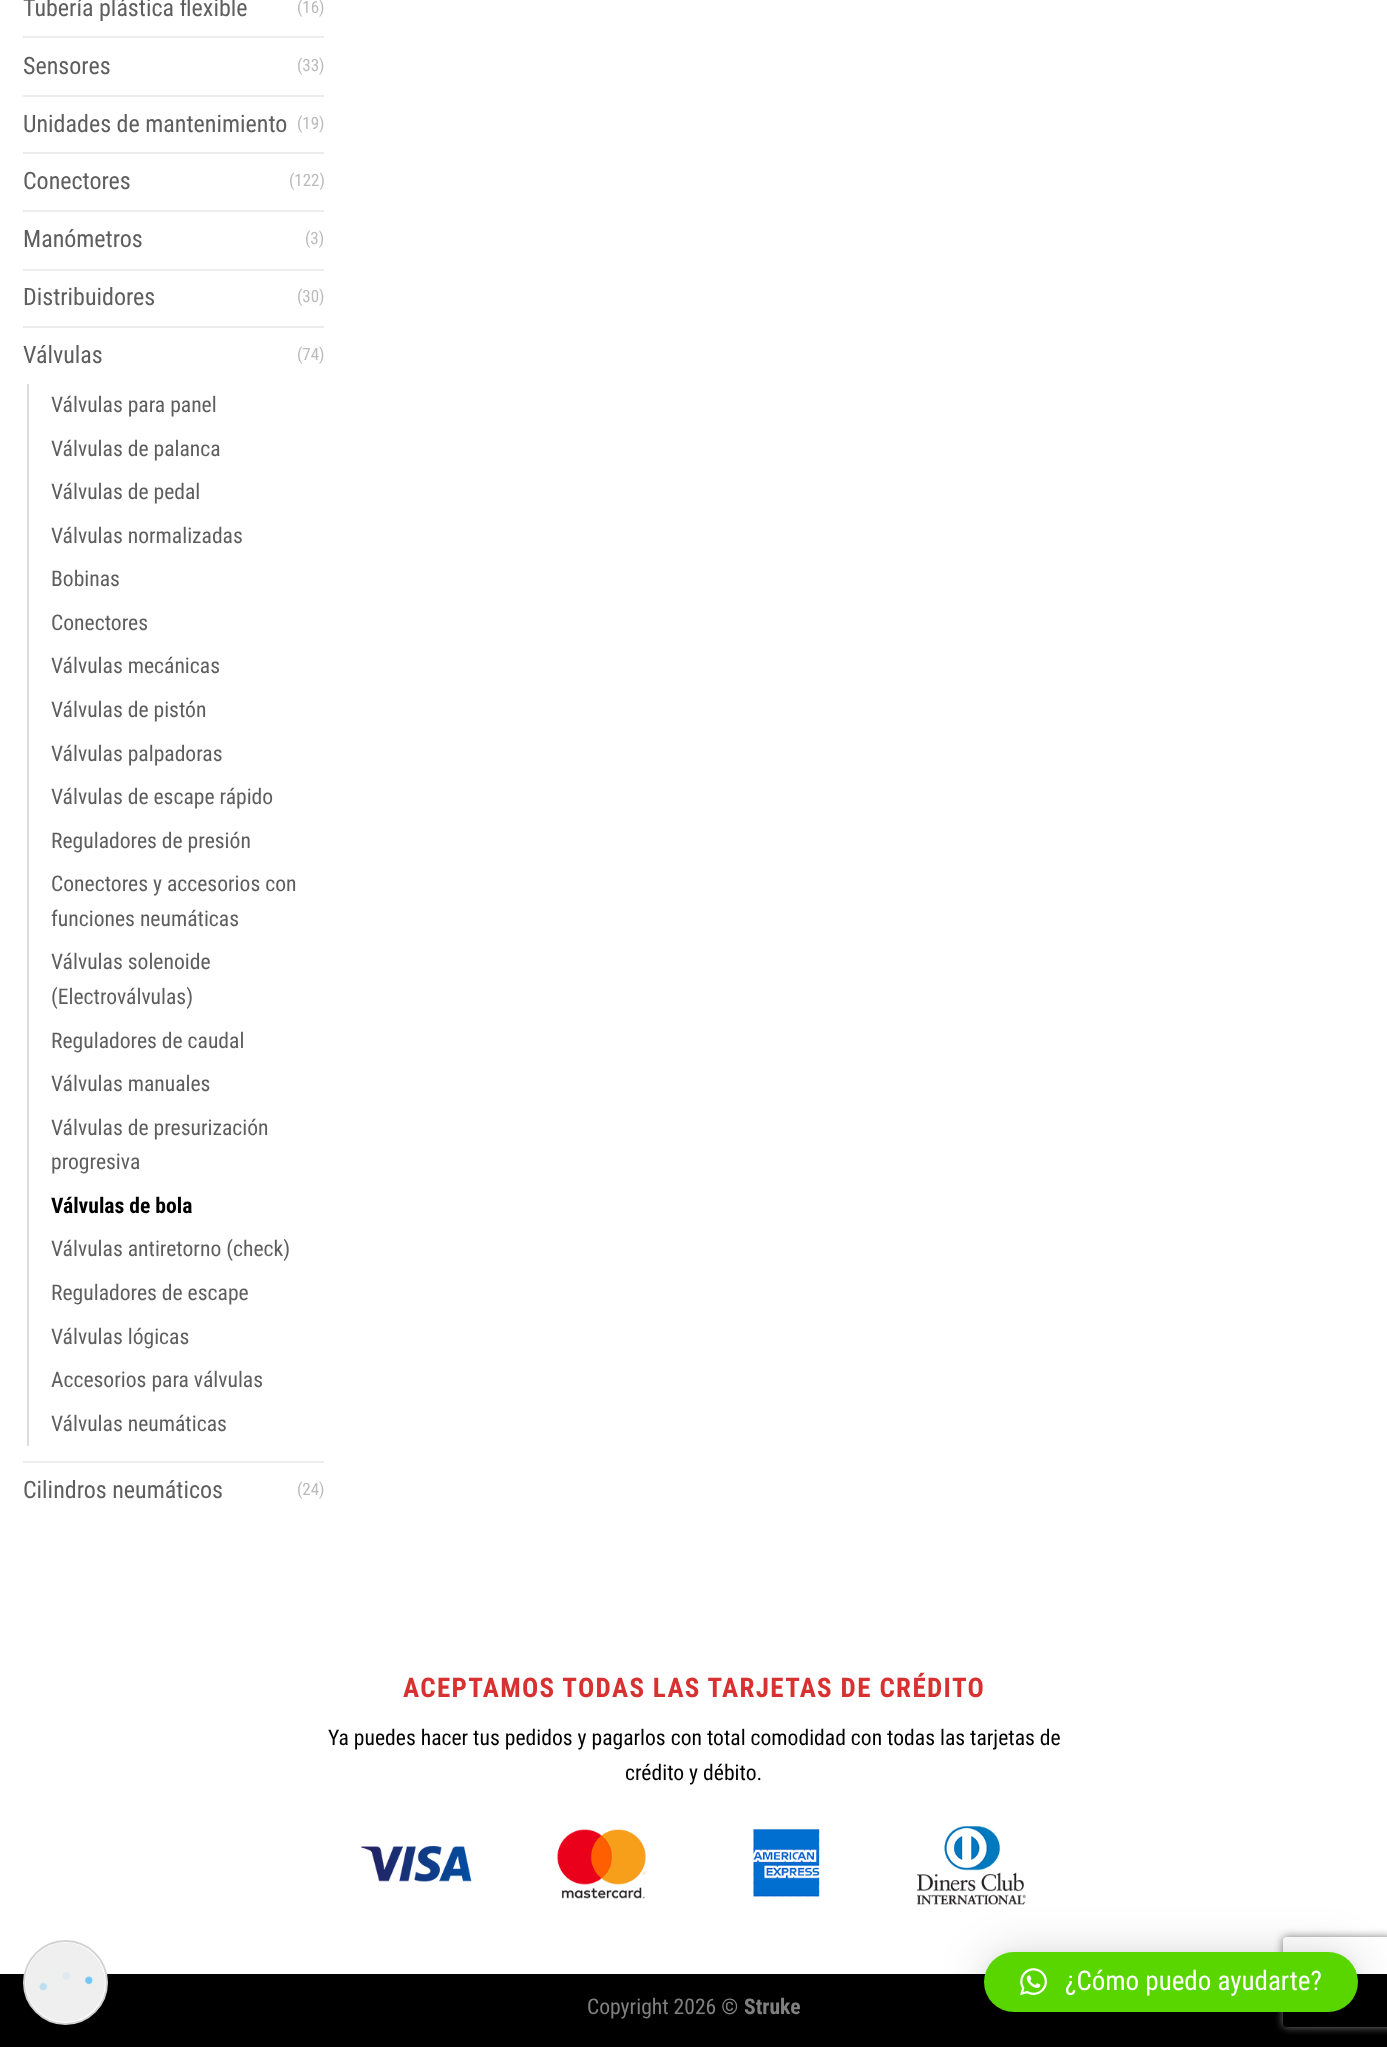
<svg xmlns="http://www.w3.org/2000/svg" width="1387" height="2047">
<defs>
<clipPath id="clip1"><path d="M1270 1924h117v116h-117zm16 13h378c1.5 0 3 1.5 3 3v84c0 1.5-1.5 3-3 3h-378c-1.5 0-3-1.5-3-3v-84c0-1.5 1.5-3 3-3z" clip-rule="evenodd"/></clipPath>
</defs>
<rect width="100%" height="100%" fill="#fff"/>
<text x="23" y="16" style="font-family:Roboto Condensed;font-size:24px;fill:#5e5e5e">Tubería plástica flexible</text>
<text x="297" y="13" style="font-family:Roboto Condensed;font-size:17px;fill:#bbb">(16)</text>
<rect x="23" y="36" width="301" height="2" fill="#ececec"/>
<text x="23" y="74" style="font-family:Roboto Condensed;font-size:24px;fill:#5e5e5e">Sensores</text>
<text x="297" y="71" style="font-family:Roboto Condensed;font-size:17px;fill:#bbb">(33)</text>
<rect x="23" y="95" width="301" height="2" fill="#ececec"/>
<text x="23" y="132" style="font-family:Roboto Condensed;font-size:24px;fill:#5e5e5e">Unidades de mantenimiento</text>
<text x="297" y="129" style="font-family:Roboto Condensed;font-size:17px;fill:#bbb">(19)</text>
<rect x="23" y="152" width="301" height="2" fill="#ececec"/>
<text x="23" y="189" style="font-family:Roboto Condensed;font-size:24px;fill:#5e5e5e">Conectores</text>
<text x="289" y="186" style="font-family:Roboto Condensed;font-size:17px;fill:#bbb">(122)</text>
<rect x="23" y="210" width="301" height="2" fill="#ececec"/>
<text x="23" y="247" style="font-family:Roboto Condensed;font-size:24px;fill:#5e5e5e">Manómetros</text>
<text x="305" y="244" style="font-family:Roboto Condensed;font-size:17px;fill:#bbb">(3)</text>
<rect x="23" y="269" width="301" height="2" fill="#ececec"/>
<text x="23" y="305" style="font-family:Roboto Condensed;font-size:24px;fill:#5e5e5e">Distribuidores</text>
<text x="297" y="302" style="font-family:Roboto Condensed;font-size:17px;fill:#bbb">(30)</text>
<rect x="23" y="326" width="301" height="2" fill="#ececec"/>
<text x="23" y="363" style="font-family:Roboto Condensed;font-size:24px;fill:#5e5e5e">Válvulas</text>
<text x="297" y="360" style="font-family:Roboto Condensed;font-size:17px;fill:#bbb">(74)</text>
<rect x="27" y="384" width="2" height="1062" fill="#ddd"/>
<text x="51" y="412" style="font-family:Roboto Condensed;font-size:21.6px;fill:#5e5e5e">Válvulas para panel</text>
<text x="51" y="456" style="font-family:Roboto Condensed;font-size:21.6px;fill:#5e5e5e">Válvulas de palanca</text>
<text x="51" y="499" style="font-family:Roboto Condensed;font-size:21.6px;fill:#5e5e5e">Válvulas de pedal</text>
<text x="51" y="543" style="font-family:Roboto Condensed;font-size:21.6px;fill:#5e5e5e">Válvulas normalizadas</text>
<text x="51" y="586" style="font-family:Roboto Condensed;font-size:21.6px;fill:#5e5e5e">Bobinas</text>
<text x="51" y="630" style="font-family:Roboto Condensed;font-size:21.6px;fill:#5e5e5e">Conectores</text>
<text x="51" y="673" style="font-family:Roboto Condensed;font-size:21.6px;fill:#5e5e5e">Válvulas mecánicas</text>
<text x="51" y="717" style="font-family:Roboto Condensed;font-size:21.6px;fill:#5e5e5e">Válvulas de pistón</text>
<text x="51" y="761" style="font-family:Roboto Condensed;font-size:21.6px;fill:#5e5e5e">Válvulas palpadoras</text>
<text x="51" y="804" style="font-family:Roboto Condensed;font-size:21.6px;fill:#5e5e5e">Válvulas de escape rápido</text>
<text x="51" y="848" style="font-family:Roboto Condensed;font-size:21.6px;fill:#5e5e5e">Reguladores de presión</text>
<text x="51" y="891" style="font-family:Roboto Condensed;font-size:21.6px;fill:#5e5e5e">Conectores y accesorios con</text>
<text x="51" y="926" style="font-family:Roboto Condensed;font-size:21.6px;fill:#5e5e5e">funciones neumáticas</text>
<text x="51" y="969" style="font-family:Roboto Condensed;font-size:21.6px;fill:#5e5e5e">Válvulas solenoide</text>
<text x="51" y="1004" style="font-family:Roboto Condensed;font-size:21.6px;fill:#5e5e5e">(Electroválvulas)</text>
<text x="51" y="1048" style="font-family:Roboto Condensed;font-size:21.6px;fill:#5e5e5e">Reguladores de caudal</text>
<text x="51" y="1091" style="font-family:Roboto Condensed;font-size:21.6px;fill:#5e5e5e">Válvulas manuales</text>
<text x="51" y="1135" style="font-family:Roboto Condensed;font-size:21.6px;fill:#5e5e5e">Válvulas de presurización</text>
<text x="51" y="1169" style="font-family:Roboto Condensed;font-size:21.6px;fill:#5e5e5e">progresiva</text>
<text x="51" y="1213" style="font-family:Roboto Condensed;font-size:21.6px;font-weight:bold;fill:#000">Válvulas de bola</text>
<text x="51" y="1256" style="font-family:Roboto Condensed;font-size:21.6px;fill:#5e5e5e">Válvulas antiretorno (check)</text>
<text x="51" y="1300" style="font-family:Roboto Condensed;font-size:21.6px;fill:#5e5e5e">Reguladores de escape</text>
<text x="51" y="1344" style="font-family:Roboto Condensed;font-size:21.6px;fill:#5e5e5e">Válvulas lógicas</text>
<text x="51" y="1387" style="font-family:Roboto Condensed;font-size:21.6px;fill:#5e5e5e">Accesorios para válvulas</text>
<text x="51" y="1431" style="font-family:Roboto Condensed;font-size:21.6px;fill:#5e5e5e">Válvulas neumáticas</text>
<rect x="23" y="1461" width="301" height="2" fill="#ececec"/>
<text x="23" y="1498" style="font-family:Roboto Condensed;font-size:24px;fill:#5e5e5e">Cilindros neumáticos</text>
<text x="297" y="1495" style="font-family:Roboto Condensed;font-size:17px;fill:#bbb">(24)</text>
<text x="403" y="1697" style="font-family:Roboto Condensed;font-size:27px;font-weight:bold;letter-spacing:1.35px;fill:#d83131">ACEPTAMOS TODAS LAS TARJETAS DE CRÉDITO</text>
<text x="328" y="1745" style="font-family:Roboto Condensed;font-size:21.6px;fill:#000">Ya puedes hacer tus pedidos y pagarlos con total comodidad con todas las tarjetas de</text>
<text x="625" y="1780" style="font-family:Roboto Condensed;font-size:21.6px;fill:#000">crédito y débito.</text>
<image x="360" y="1826" width="666" height="79" href="media/1.png"/>
<rect y="1974" width="1387" height="73" fill="#000"/>
<text x="587" y="2014" style="font-family:Roboto Condensed;font-size:21.6px;fill:#808080">Copyright 2026 ©</text>
<text x="744" y="2014" style="font-family:Roboto Condensed;font-size:21.6px;font-weight:bold;fill:#808080">Struke</text>
<g clip-path="url(#clip1)">
<rect x="1283" y="1937" width="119" height="90" rx="3" fill="#808080" filter="blur(4px)"/>
</g>
<circle cx="65.5" cy="1982.5" r="41.5" fill="#fff" stroke="#d3d3d3" stroke-width="2"/>
<image x="26" y="1942" width="79" height="80" href="media/2.png"/>
<rect x="984" y="1955" width="374" height="60" rx="30" fill="#00000029" filter="blur(24px)"/>
<rect x="984" y="1953" width="374" height="60" rx="30" fill="#0000000f" filter="blur(4.5px)"/>
<rect x="984" y="1952" width="374" height="60" rx="30" fill="#59d600"/>
<image x="1020" y="1968" width="27" height="28" href="media/3.png"/>
<text x="1065" y="1990" style="font-family:Roboto Condensed;font-size:27px;fill:#fff">¿Cómo puedo ayudarte?</text>
</svg>
